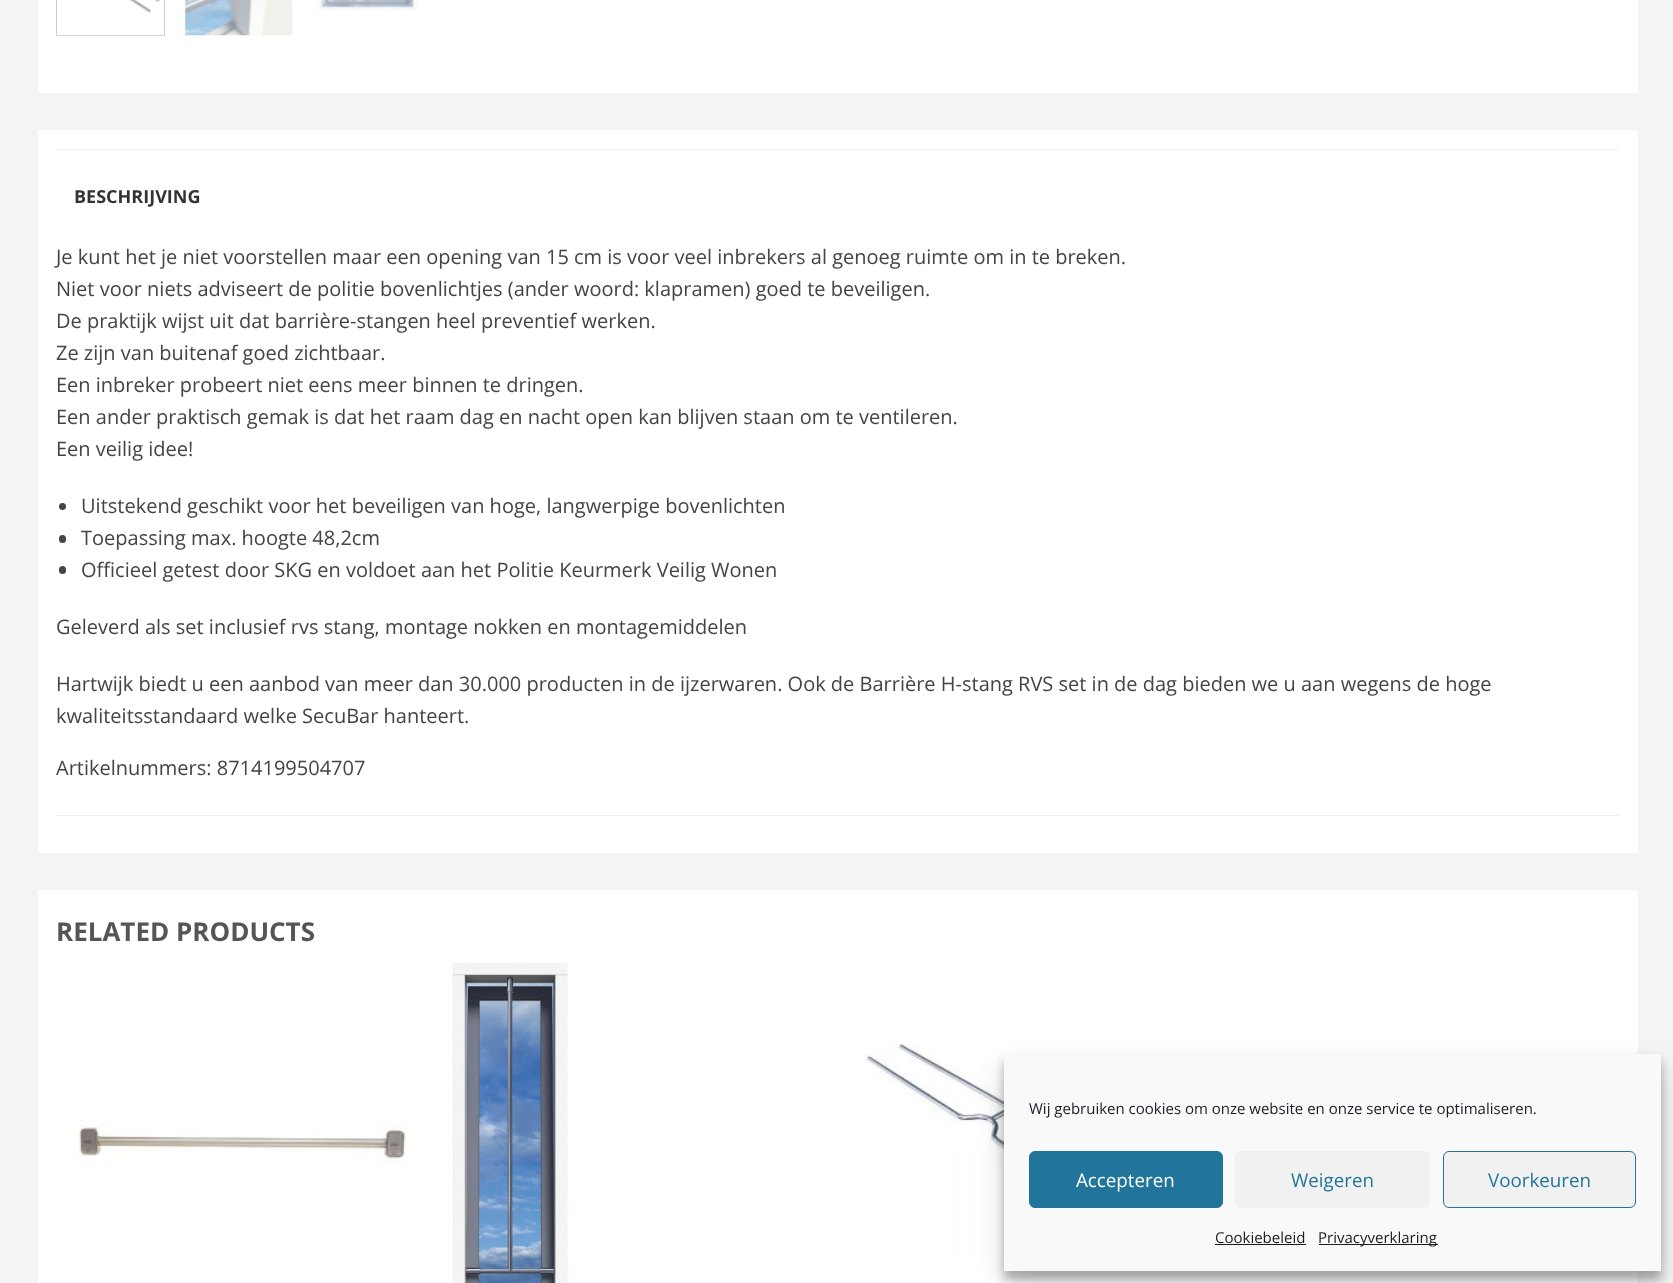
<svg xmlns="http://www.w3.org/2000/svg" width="1673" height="1283">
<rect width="100%" height="100%" fill="#f4f4f4"/>
<rect x="38" width="1600" height="93" fill="#fff"/>
<rect x="56.5" y="-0.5" width="108" height="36" fill="none" stroke="#ccc"/>
<image x="57" y="0" width="107" height="36" href="media/1.png"/>
<image x="184" y="0" width="109" height="36" href="media/2.png"/>
<image x="314" y="0" width="104" height="11" href="media/3.png"/>
<rect x="38" y="130" width="1600" height="723" fill="#fff"/>
<rect x="56" y="149" width="1563" height="1" fill="#eee"/>
<text x="74" y="203" style="font-family:Open Sans;font-size:18px;font-weight:bold;fill:#333">BESCHRIJVING</text>
<text x="56" y="264" style="font-family:Open Sans;font-size:20px;fill:#444">Je kunt het je niet voorstellen maar een opening van 15 cm is voor veel inbrekers al genoeg ruimte om in te breken.</text>
<text x="56" y="296" style="font-family:Open Sans;font-size:20px;fill:#444">Niet voor niets adviseert de politie bovenlichtjes (ander woord: klapramen) goed te beveiligen.</text>
<text x="56" y="328" style="font-family:Open Sans;font-size:20px;fill:#444">De praktijk wijst uit dat barrière-stangen heel preventief werken.</text>
<text x="56" y="360" style="font-family:Open Sans;font-size:20px;fill:#444">Ze zijn van buitenaf goed zichtbaar.</text>
<text x="56" y="392" style="font-family:Open Sans;font-size:20px;fill:#444">Een inbreker probeert niet eens meer binnen te dringen.</text>
<text x="56" y="424" style="font-family:Open Sans;font-size:20px;fill:#444">Een ander praktisch gemak is dat het raam dag en nacht open kan blijven staan om te ventileren.</text>
<text x="56" y="456" style="font-family:Open Sans;font-size:20px;fill:#444">Een veilig idee!</text>
<circle cx="62.5" cy="506.5" r="3.5" fill="#444"/>
<text x="81" y="513" style="font-family:Open Sans;font-size:20px;fill:#444">Uitstekend geschikt voor het beveiligen van hoge, langwerpige bovenlichten</text>
<rect x="59" y="535" width="7" height="8" rx="3.5" fill="#444"/>
<text x="81" y="545" style="font-family:Open Sans;font-size:20px;fill:#444">Toepassing max. hoogte 48,2cm</text>
<rect x="59" y="566" width="7" height="8" rx="3.5" fill="#444"/>
<text x="81" y="577" style="font-family:Open Sans;font-size:20px;fill:#444">Officieel getest door SKG en voldoet aan het Politie Keurmerk Veilig Wonen</text>
<text x="56" y="634" style="font-family:Open Sans;font-size:20px;fill:#444">Geleverd als set inclusief rvs stang, montage nokken en montagemiddelen</text>
<text x="56" y="691" style="font-family:Open Sans;font-size:20px;fill:#444">Hartwijk biedt u een aanbod van meer dan 30.000 producten in de ijzerwaren. Ook de Barrière H-stang RVS set in de dag bieden we u aan wegens de hoge</text>
<text x="56" y="723" style="font-family:Open Sans;font-size:20px;fill:#444">kwaliteitsstandaard welke SecuBar hanteert.</text>
<text x="56" y="775" style="font-family:Open Sans;font-size:20px;fill:#444">Artikelnummers: 8714199504707</text>
<rect x="56" y="815" width="1563" height="1" fill="#eee"/>
<rect x="38" y="890" width="1600" height="393" fill="#fff"/>
<text x="56" y="941" style="font-family:Open Sans;font-size:26px;font-weight:bold;fill:#555">RELATED PRODUCTS</text>
<image x="76" y="1124" width="334" height="40" href="media/4.png"/>
<image x="452" y="963" width="116" height="320" href="media/5.png"/>
<image x="863" y="1044" width="344" height="218" href="media/6.png"/>
<rect x="1004" y="1061" width="657" height="218" fill="#0000003b" filter="blur(4px)"/>
<rect x="1004" y="1066" width="657" height="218" fill="#00000030" filter="blur(12.5px)"/>
<rect x="1004" y="1054" width="657" height="217" fill="#f9f9f9"/>
<text x="1029" y="1114" style="font-family:Open Sans;font-size:15px;fill:#191e23">Wij gebruiken cookies om onze website en onze service te optimaliseren.</text>
<rect x="1029.5" y="1151.5" width="193" height="56" rx="5.5" fill="#21759b" stroke="#21759b"/>
<text x="1076" y="1187" style="font-family:Open Sans;font-size:18.75px;fill:#fff">Accepteren</text>
<rect x="1235" y="1151" width="195" height="57" rx="6" fill="#f1f1f1"/>
<text x="1291" y="1187" style="font-family:Open Sans;font-size:18.75px;fill:#21759b">Weigeren</text>
<rect x="1443.5" y="1151.5" width="192" height="56" rx="5.5" fill="#f1f1f1" stroke="#21759b"/>
<text x="1488" y="1187" style="font-family:Open Sans;font-size:18.75px;fill:#21759b">Voorkeuren</text>
<text x="1215" y="1243" style="font-family:Open Sans;font-size:15px;fill:#191e23">Cookiebeleid</text>
<rect x="1215" y="1244" width="91" height="1" fill="#191e23"/>
<rect x="1319" y="1244" width="119" height="1" fill="#191e23"/>
<text x="1318" y="1243" style="font-family:Open Sans;font-size:15px;fill:#191e23">Privacyverklaring</text>
</svg>
